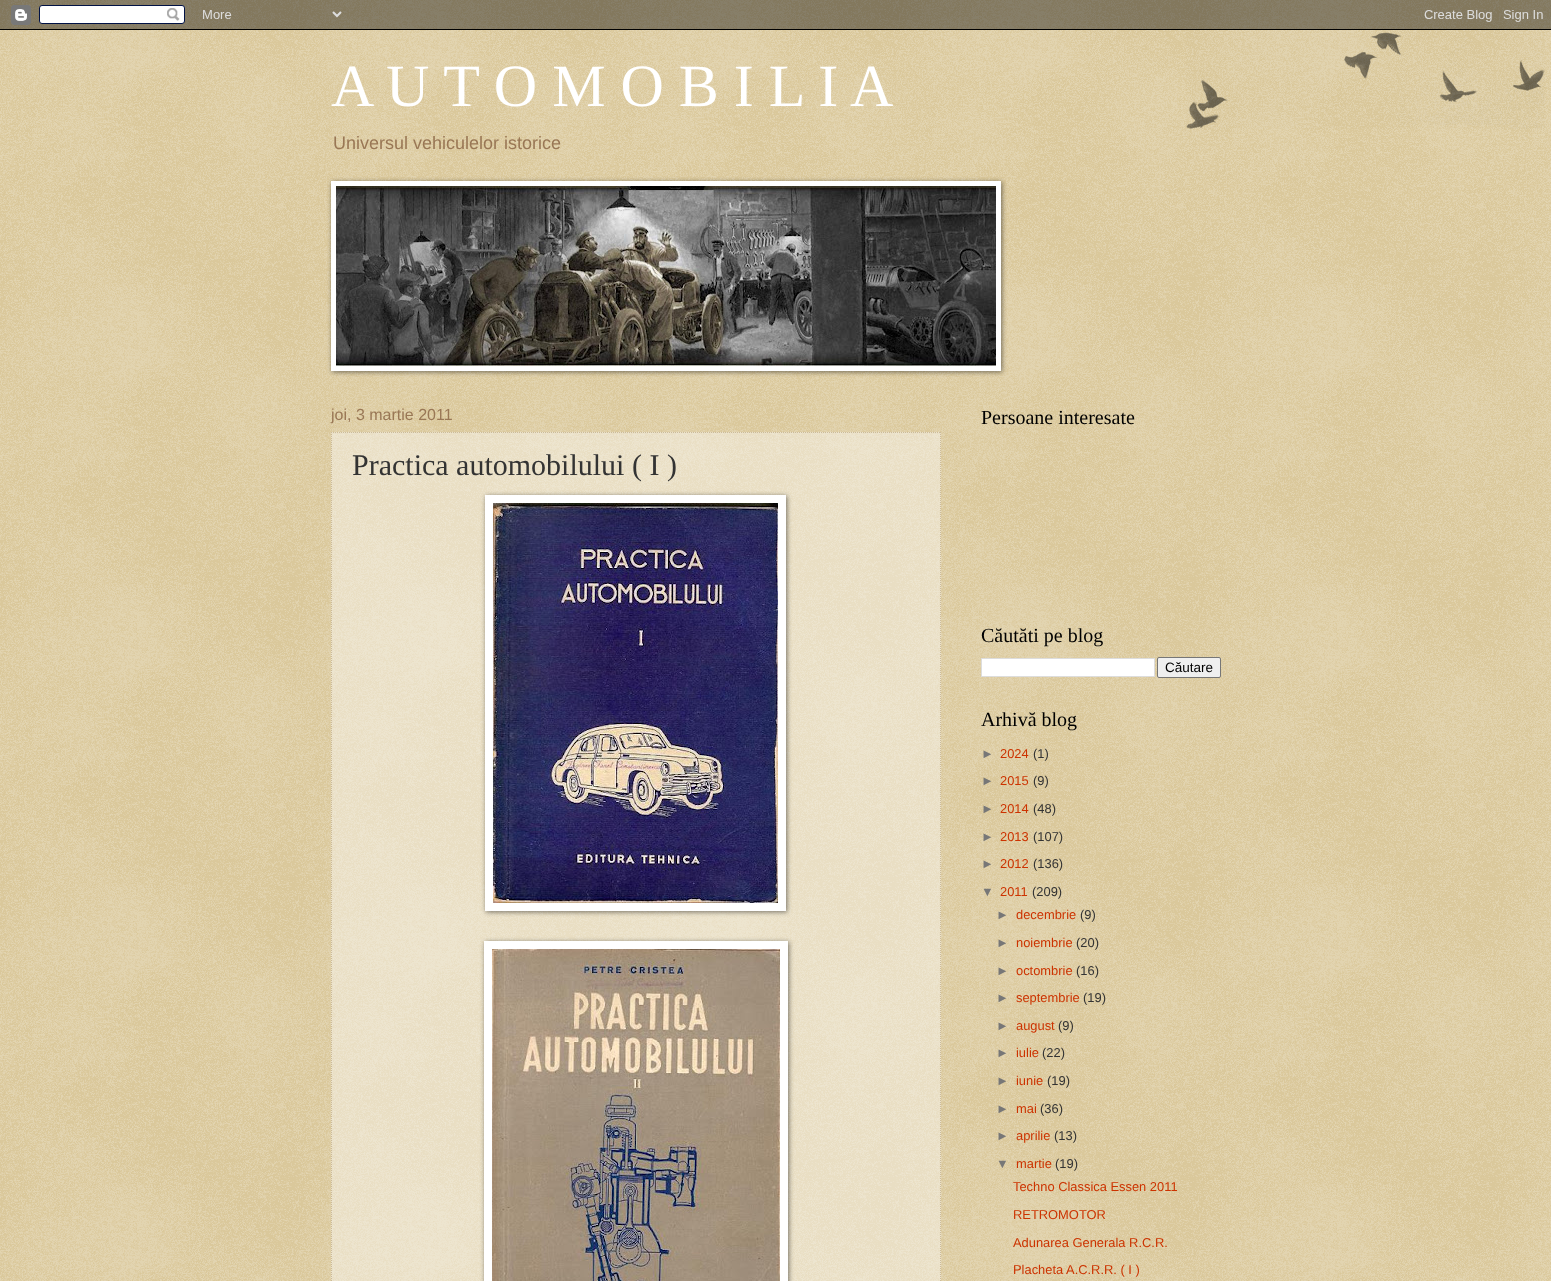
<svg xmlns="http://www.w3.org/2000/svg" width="1551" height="1281">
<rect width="100%" height="100%" fill="#c0a154"/>
<image x="0" y="0" width="1551" height="1281" href="media/1.png"/>
<image x="0" y="0" width="1551" height="30" href="media/2.png"/>
<text x="331" y="106" style="font-family:Liberation Serif;font-size:60px;fill:#fff">A U T O M O B I L I A</text>
<text x="333" y="149" style="font-family:Liberation Sans;font-size:18px;fill:#975">Universul vehiculelor istorice</text>
<rect x="332" y="182" width="670" height="190" fill="#00000080" filter="blur(2.5px)"/>
<rect x="331" y="181" width="670" height="190" fill="#fff"/>
<image x="336" y="186" width="660" height="180" href="media/3.png"/>
<text x="331" y="420" style="font-family:Liberation Sans;font-size:16px;fill:#975">joi, 3 martie 2011</text>
<rect x="331" y="432" width="610" height="849" fill="#ffffff66"/>
<path d="M331 432.5h610" fill="none" stroke="#cb9" stroke-dasharray="1 1"/>
<path d="M940.5 432v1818" fill="none" stroke="#cb9" stroke-dasharray="1 1"/>
<path d="M331.5 432v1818" fill="none" stroke="#cb9" stroke-dasharray="1 1"/>
<text x="352" y="475" style="font-family:Liberation Serif;font-size:30px;fill:#333">Practica automobilului ( I )</text>
<rect x="486" y="496" width="301" height="416" fill="#00000080" filter="blur(2.5px)"/>
<rect x="485" y="495" width="301" height="416" fill="#fff"/>
<image x="493" y="503" width="285" height="400" href="media/4.png"/>
<rect x="485" y="942" width="304" height="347" fill="#00000080" filter="blur(2.5px)"/>
<rect x="484" y="941" width="304" height="340" fill="#fff"/>
<image x="492" y="949" width="288" height="332" href="media/5.png"/>
<text x="981" y="424" style="font-family:Liberation Serif;font-size:20px;fill:#000">Persoane interesate</text>
<text x="981" y="642" style="font-family:Liberation Serif;font-size:20px;fill:#000">Căutăti pe blog</text>
<rect x="981.5" y="658.5" width="173" height="18" fill="#fff" stroke="#ddd"/>
<rect x="1157.5" y="657.5" width="63" height="20" rx="1.5" fill="#efefef" stroke="#767676"/>
<text x="1165" y="672" style="font-family:Liberation Sans;font-size:13.5px;fill:#000">Căutare</text>
<text x="981" y="726" style="font-family:Liberation Serif;font-size:20px;fill:#000">Arhivă blog</text>
<text x="981" y="758" style="font-family:Liberation Sans;font-size:12.9px;fill:#777">►</text>
<text x="1000" y="758" style="font-family:Liberation Sans;font-size:12.9px;fill:#c30">2024</text>
<text x="1033" y="758" style="font-family:Liberation Sans;font-size:12.9px;fill:#333">(1)</text>
<text x="981" y="785" style="font-family:Liberation Sans;font-size:12.9px;fill:#777">►</text>
<text x="1000" y="785" style="font-family:Liberation Sans;font-size:12.9px;fill:#c30">2015</text>
<text x="1033" y="785" style="font-family:Liberation Sans;font-size:12.9px;fill:#333">(9)</text>
<text x="981" y="813" style="font-family:Liberation Sans;font-size:12.9px;fill:#777">►</text>
<text x="1000" y="813" style="font-family:Liberation Sans;font-size:12.9px;fill:#c30">2014</text>
<text x="1033" y="813" style="font-family:Liberation Sans;font-size:12.9px;fill:#333">(48)</text>
<text x="981" y="841" style="font-family:Liberation Sans;font-size:12.9px;fill:#777">►</text>
<text x="1000" y="841" style="font-family:Liberation Sans;font-size:12.9px;fill:#c30">2013</text>
<text x="1033" y="841" style="font-family:Liberation Sans;font-size:12.9px;fill:#333">(107)</text>
<text x="981" y="868" style="font-family:Liberation Sans;font-size:12.9px;fill:#777">►</text>
<text x="1000" y="868" style="font-family:Liberation Sans;font-size:12.9px;fill:#c30">2012</text>
<text x="1033" y="868" style="font-family:Liberation Sans;font-size:12.9px;fill:#333">(136)</text>
<text x="981" y="896" style="font-family:Liberation Sans;font-size:12.9px;fill:#777">▼</text>
<text x="1000" y="896" style="font-family:Liberation Sans;font-size:12.9px;fill:#c30">2011</text>
<text x="1032" y="896" style="font-family:Liberation Sans;font-size:12.9px;fill:#333">(209)</text>
<text x="996" y="919" style="font-family:Liberation Sans;font-size:12.9px;fill:#777">►</text>
<text x="1016" y="919" style="font-family:Liberation Sans;font-size:12.9px;fill:#c30">decembrie</text>
<text x="1080" y="919" style="font-family:Liberation Sans;font-size:12.9px;fill:#333">(9)</text>
<text x="996" y="947" style="font-family:Liberation Sans;font-size:12.9px;fill:#777">►</text>
<text x="1016" y="947" style="font-family:Liberation Sans;font-size:12.9px;fill:#c30">noiembrie</text>
<text x="1076" y="947" style="font-family:Liberation Sans;font-size:12.9px;fill:#333">(20)</text>
<text x="996" y="975" style="font-family:Liberation Sans;font-size:12.9px;fill:#777">►</text>
<text x="1016" y="975" style="font-family:Liberation Sans;font-size:12.9px;fill:#c30">octombrie</text>
<text x="1076" y="975" style="font-family:Liberation Sans;font-size:12.9px;fill:#333">(16)</text>
<text x="996" y="1002" style="font-family:Liberation Sans;font-size:12.9px;fill:#777">►</text>
<text x="1016" y="1002" style="font-family:Liberation Sans;font-size:12.9px;fill:#c30">septembrie</text>
<text x="1083" y="1002" style="font-family:Liberation Sans;font-size:12.9px;fill:#333">(19)</text>
<text x="996" y="1030" style="font-family:Liberation Sans;font-size:12.9px;fill:#777">►</text>
<text x="1016" y="1030" style="font-family:Liberation Sans;font-size:12.9px;fill:#c30">august</text>
<text x="1058" y="1030" style="font-family:Liberation Sans;font-size:12.9px;fill:#333">(9)</text>
<text x="996" y="1057" style="font-family:Liberation Sans;font-size:12.9px;fill:#777">►</text>
<text x="1016" y="1057" style="font-family:Liberation Sans;font-size:12.9px;fill:#c30">iulie</text>
<text x="1042" y="1057" style="font-family:Liberation Sans;font-size:12.9px;fill:#333">(22)</text>
<text x="996" y="1085" style="font-family:Liberation Sans;font-size:12.9px;fill:#777">►</text>
<text x="1016" y="1085" style="font-family:Liberation Sans;font-size:12.9px;fill:#c30">iunie</text>
<text x="1047" y="1085" style="font-family:Liberation Sans;font-size:12.9px;fill:#333">(19)</text>
<text x="996" y="1113" style="font-family:Liberation Sans;font-size:12.9px;fill:#777">►</text>
<text x="1016" y="1113" style="font-family:Liberation Sans;font-size:12.9px;fill:#c30">mai</text>
<text x="1040" y="1113" style="font-family:Liberation Sans;font-size:12.9px;fill:#333">(36)</text>
<text x="996" y="1140" style="font-family:Liberation Sans;font-size:12.9px;fill:#777">►</text>
<text x="1016" y="1140" style="font-family:Liberation Sans;font-size:12.9px;fill:#c30">aprilie</text>
<text x="1054" y="1140" style="font-family:Liberation Sans;font-size:12.9px;fill:#333">(13)</text>
<text x="996" y="1168" style="font-family:Liberation Sans;font-size:12.9px;fill:#777">▼</text>
<text x="1016" y="1168" style="font-family:Liberation Sans;font-size:12.9px;fill:#c30">martie</text>
<text x="1055" y="1168" style="font-family:Liberation Sans;font-size:12.9px;fill:#333">(19)</text>
<text x="1013" y="1191" style="font-family:Liberation Sans;font-size:12.9px;fill:#c30">Techno Classica Essen 2011</text>
<text x="1013" y="1219" style="font-family:Liberation Sans;font-size:12.9px;fill:#c30">RETROMOTOR</text>
<text x="1013" y="1247" style="font-family:Liberation Sans;font-size:12.9px;fill:#c30">Adunarea Generala R.C.R.</text>
<text x="1013" y="1274" style="font-family:Liberation Sans;font-size:12.9px;fill:#c30">Placheta A.C.R.R. ( I )</text>
<image x="1186" y="32" width="359" height="97" href="media/6.png"/>
</svg>
